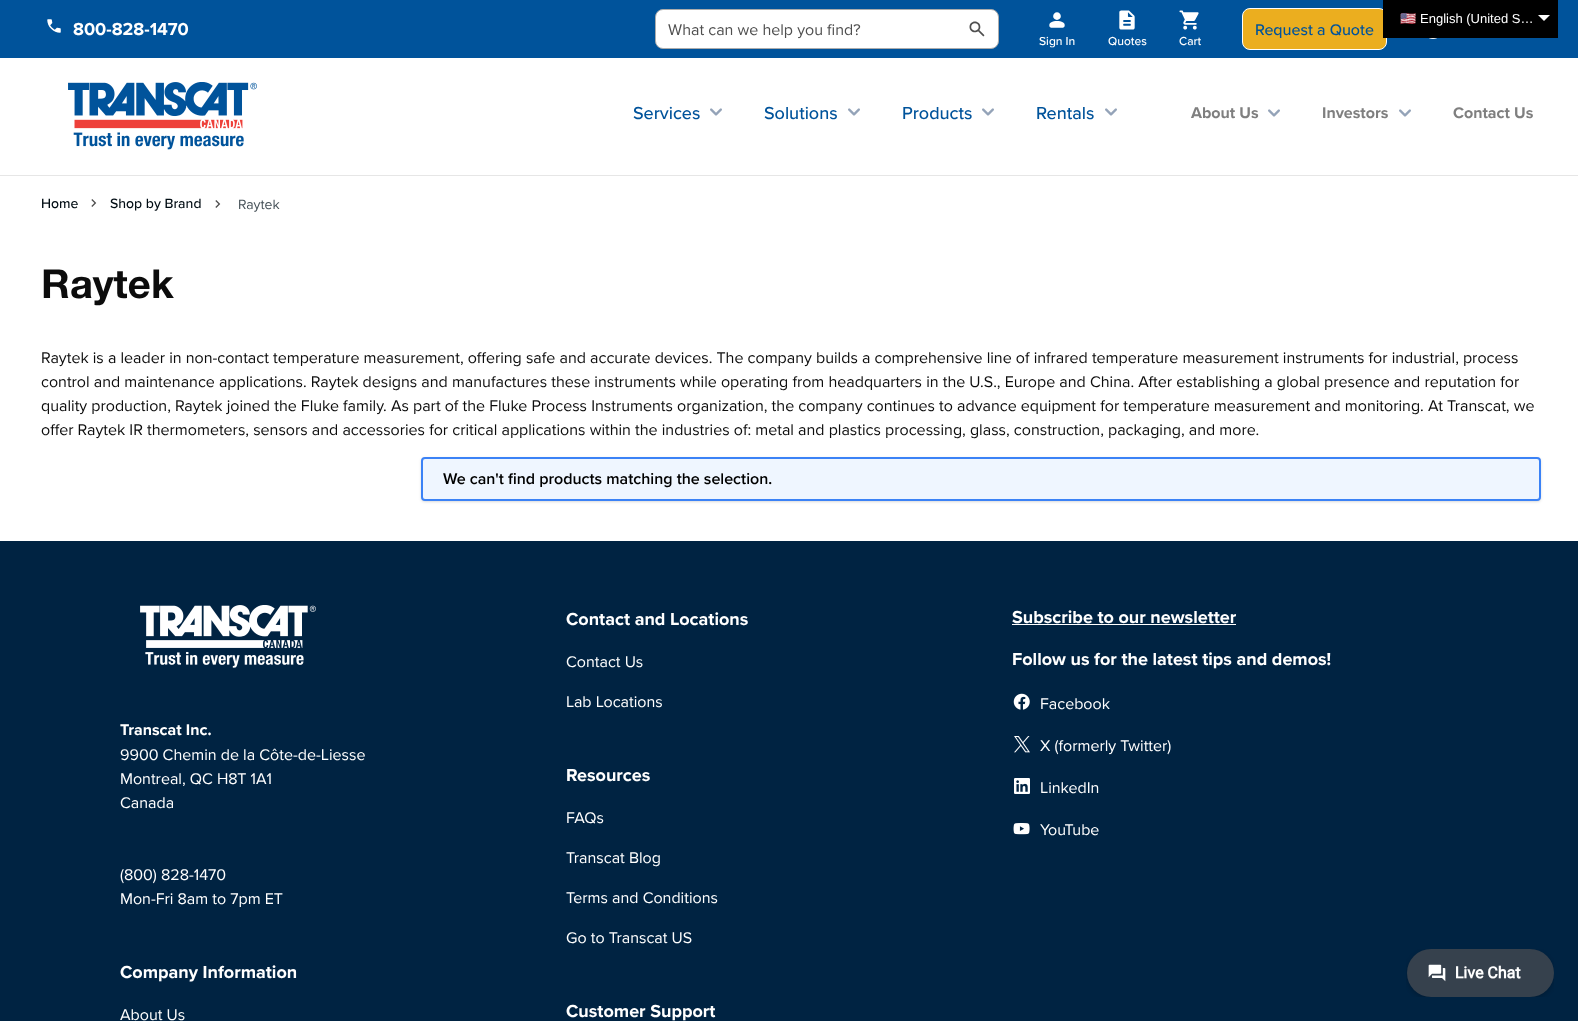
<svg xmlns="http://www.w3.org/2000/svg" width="1593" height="1021">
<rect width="100%" height="100%" fill="#fff"/>
<rect width="1578" height="58" fill="#00539b"/>
<rect x="1242.5" y="8.5" width="144" height="41" rx="7.5" fill="#ebae1f" stroke="#fff"/>
<rect x="1383" width="175" height="38" fill="#000"/>
<text x="1400" y="23" style="font-family:Noto Color Emoji;font-size:13px;fill:#fff">🇺🇸</text>
<text x="1420" y="23" style="font-family:Liberation Sans;font-size:13px;fill:#fff">English (United S…</text>
<path d="M1538 15h12l-6 6z" fill="#fff"/>
<image x="47" y="19" width="14" height="14" href="media/1.png"/>
<text x="73" y="35" style="font-family:Proxima Nova;font-size:18px;font-weight:bold;fill:#fff">800-828-1470</text>
<rect x="655.5" y="9.5" width="343" height="39" rx="7.5" fill="#fff" stroke="#acacac"/>
<text x="668" y="35" style="font-family:Proxima Nova;font-size:16px;fill:#4f4f4f">What can we help you find?</text>
<image x="969" y="21" width="16" height="16" href="media/2.png"/>
<text x="1255" y="35" style="font-family:Proxima Nova;font-size:16px;font-weight:500;fill:#00539b">Request a Quote</text>
<image x="1049" y="12" width="16" height="16" href="media/3.png"/>
<text x="1039" y="45" style="font-family:Proxima Nova;font-size:12px;font-weight:500;fill:#fff">Sign In</text>
<image x="1119" y="10" width="16" height="20" href="media/4.png"/>
<text x="1108" y="45" style="font-family:Proxima Nova;font-size:12px;font-weight:500;fill:#fff">Quotes</text>
<image x="1179" y="10" width="20" height="20" href="media/5.png"/>
<text x="1179" y="45" style="font-family:Proxima Nova;font-size:12px;font-weight:500;fill:#fff">Cart</text>
<image x="1429" y="38" width="8" height="1" href="media/6.png"/>
<rect y="175" width="1578" height="1" fill="#e6e6e6"/>
<image x="68" y="82" width="189" height="68" href="media/7.png"/>
<text x="633" y="119" style="font-family:Proxima Nova;font-size:18px;font-weight:500;fill:#00539b">Services</text>
<image x="710" y="108" width="12" height="8" href="media/8.png"/>
<text x="764" y="119" style="font-family:Proxima Nova;font-size:18px;font-weight:500;fill:#00539b">Solutions</text>
<image x="848" y="108" width="12" height="8" href="media/8.png"/>
<text x="902" y="119" style="font-family:Proxima Nova;font-size:18px;font-weight:500;fill:#00539b">Products</text>
<image x="982" y="108" width="12" height="8" href="media/8.png"/>
<text x="1036" y="119" style="font-family:Proxima Nova;font-size:18px;font-weight:500;fill:#00539b">Rentals</text>
<image x="1105" y="108" width="12" height="8" href="media/8.png"/>
<text x="1191" y="118" style="font-family:Proxima Nova;font-size:16px;font-weight:bold;fill:#7f7f7f">About Us</text>
<image x="1268" y="109" width="12" height="8" href="media/8.png"/>
<text x="1322" y="118" style="font-family:Proxima Nova;font-size:16px;font-weight:bold;fill:#7f7f7f">Investors</text>
<image x="1399" y="109" width="12" height="8" href="media/8.png"/>
<text x="1453" y="118" style="font-family:Proxima Nova;font-size:16px;font-weight:bold;fill:#7f7f7f">Contact Us</text>
<text x="41" y="208" style="font-family:Proxima Nova;font-size:14px;font-weight:500;fill:#000c13">Home</text>
<image x="91" y="199" width="6" height="8" href="media/9.png"/>
<text x="110" y="208" style="font-family:Proxima Nova;font-size:14px;font-weight:500;fill:#000c13">Shop by Brand</text>
<image x="215" y="200" width="6" height="8" href="media/9.png"/>
<text x="238" y="209" style="font-family:Proxima Nova;font-size:14px;fill:#465158">Raytek</text>
<text x="41" y="298" style="font-family:Helvetica Neue;font-size:40px;font-weight:bold;fill:#0c0c0c">Raytek</text>
<text x="41" y="363" style="font-family:Proxima Nova;font-size:16px;fill:#0c0c0c">Raytek is a leader in non-contact temperature measurement, offering safe and accurate devices. The company builds a comprehensive line of infrared temperature measurement instruments for industrial, process</text>
<text x="41" y="387" style="font-family:Proxima Nova;font-size:16px;fill:#0c0c0c">control and maintenance applications. Raytek designs and manufactures these instruments while operating from headquarters in the U.S., Europe and China. After establishing a global presence and reputation for</text>
<text x="41" y="411" style="font-family:Proxima Nova;font-size:16px;fill:#0c0c0c">quality production, Raytek joined the Fluke family. As part of the Fluke Process Instruments organization, the company continues to advance equipment for temperature measurement and monitoring. At Transcat, we</text>
<text x="41" y="435" style="font-family:Proxima Nova;font-size:16px;fill:#0c0c0c">offer Raytek IR thermometers, sensors and accessories for critical applications within the industries of: metal and plastics processing, glass, construction, packaging, and more.</text>
<rect x="422" y="459" width="1118" height="42" rx="3" fill="#0000001a" filter="blur(1px)"/>
<rect x="421" y="458" width="1120" height="44" rx="4" fill="#0000001a" filter="blur(1.5px)"/>
<rect x="422" y="458" width="1118" height="42" rx="3" fill="#eff6ff" stroke="#3b82f6" stroke-width="2"/>
<text x="443" y="484" style="font-family:Proxima Nova;font-size:16px;font-weight:600;fill:#000">We can't find products matching the selection.</text>
<rect y="541" width="1578" height="480" fill="#002342"/>
<image x="140" y="605" width="176" height="63" href="media/10.png"/>
<text x="120" y="735" style="font-family:Proxima Nova;font-size:16px;font-weight:bold;fill:#fff">Transcat Inc.</text>
<text x="120" y="760" style="font-family:Proxima Nova;font-size:16px;fill:#fff">9900 Chemin de la Côte-de-Liesse</text>
<text x="120" y="784" style="font-family:Proxima Nova;font-size:16px;fill:#fff">Montreal, QC H8T 1A1</text>
<text x="120" y="808" style="font-family:Proxima Nova;font-size:16px;fill:#fff">Canada</text>
<text x="120" y="880" style="font-family:Proxima Nova;font-size:16px;fill:#fff">(800) 828-1470</text>
<text x="120" y="904" style="font-family:Proxima Nova;font-size:16px;fill:#fff">Mon-Fri 8am to 7pm ET</text>
<text x="120" y="978" style="font-family:Proxima Nova;font-size:18px;font-weight:bold;fill:#fff">Company Information</text>
<text x="120" y="1020" style="font-family:Proxima Nova;font-size:16px;fill:#fff">About Us</text>
<text x="566" y="625" style="font-family:Proxima Nova;font-size:18px;font-weight:bold;fill:#fff">Contact and Locations</text>
<text x="566" y="667" style="font-family:Proxima Nova;font-size:16px;fill:#fff">Contact Us</text>
<text x="566" y="707" style="font-family:Proxima Nova;font-size:16px;fill:#fff">Lab Locations</text>
<text x="566" y="781" style="font-family:Proxima Nova;font-size:18px;font-weight:bold;fill:#fff">Resources</text>
<text x="566" y="823" style="font-family:Proxima Nova;font-size:16px;fill:#fff">FAQs</text>
<text x="566" y="863" style="font-family:Proxima Nova;font-size:16px;fill:#fff">Transcat Blog</text>
<text x="566" y="903" style="font-family:Proxima Nova;font-size:16px;fill:#fff">Terms and Conditions</text>
<text x="566" y="943" style="font-family:Proxima Nova;font-size:16px;fill:#fff">Go to Transcat US</text>
<text x="566" y="1017" style="font-family:Proxima Nova;font-size:18px;font-weight:bold;fill:#fff">Customer Support</text>
<text x="1012" y="623" style="font-family:Proxima Nova;font-size:18px;font-weight:bold;fill:#fff">Subscribe to our newsletter</text>
<rect x="1012" y="624" width="224" height="1" fill="#fff"/>
<text x="1012" y="665" style="font-family:Proxima Nova;font-size:18px;font-weight:bold;fill:#fff">Follow us for the latest tips and demos!</text>
<image x="1013" y="693" width="17" height="17" href="media/11.png"/>
<text x="1040" y="709" style="font-family:Proxima Nova;font-size:16px;fill:#fff">Facebook</text>
<image x="1014" y="736" width="16" height="17" href="media/12.png"/>
<text x="1040" y="751" style="font-family:Proxima Nova;font-size:16px;fill:#fff">X (formerly Twitter)</text>
<image x="1014" y="778" width="16" height="16" href="media/13.png"/>
<text x="1040" y="793" style="font-family:Proxima Nova;font-size:16px;fill:#fff">LinkedIn</text>
<image x="1013" y="823" width="17" height="12" href="media/14.png"/>
<text x="1040" y="835" style="font-family:Proxima Nova;font-size:16px;fill:#fff">YouTube</text>
<image x="1406" y="949" width="148" height="48" href="media/15.png"/>
</svg>
